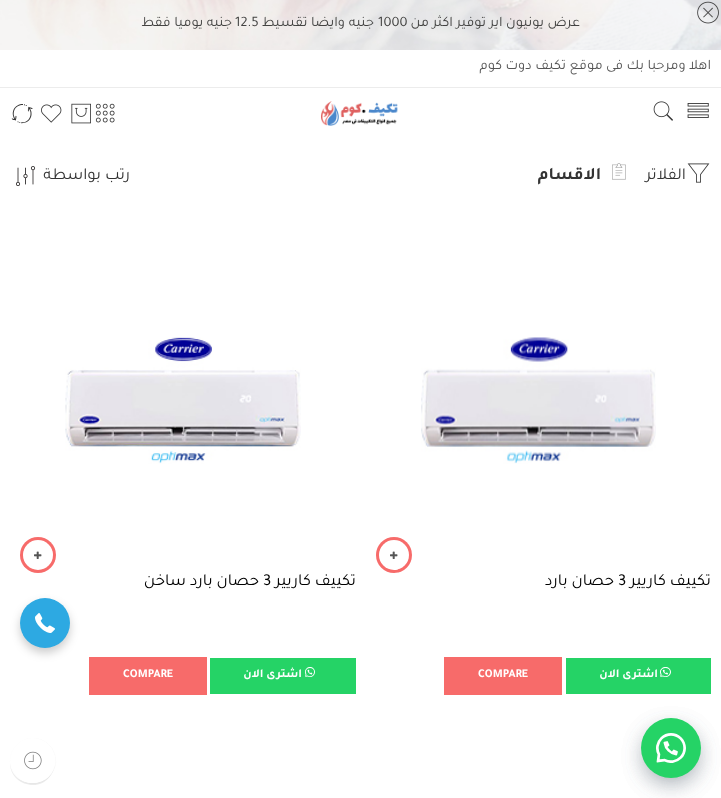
<svg xmlns="http://www.w3.org/2000/svg" width="721" height="798">
<rect width="100%" height="100%" fill="#fff"/>
<image x="0" y="0" width="721" height="50" href="media/1.png"/>
<image x="697" y="1" width="22" height="23" href="media/2.png"/>
<text x="580" y="26" style="font-family:Tajawal;font-size:14.5px;direction:rtl;fill:#434342">عرض يونيون اير</text>
<text x="486" y="26" style="font-family:Tajawal;font-size:14.5px;direction:rtl;fill:#434342">توفير اكثر من</text>
<text x="378" y="26" style="font-family:Tajawal;font-size:14.5px;fill:#434342">1000</text>
<text x="374" y="26" style="font-family:Tajawal;font-size:14.5px;direction:rtl;fill:#434342">جنيه</text>
<text x="345" y="26" style="font-family:Tajawal;font-size:14.5px;direction:rtl;fill:#434342">وايضا تقسيط</text>
<text x="235" y="26" style="font-family:Tajawal;font-size:14.5px;fill:#434342">12.5</text>
<text x="232" y="26" style="font-family:Tajawal;font-size:14.5px;direction:rtl;fill:#434342">جنيه يوميا فقط</text>
<rect y="87" width="721" height="1" fill="#ececec"/>
<text x="711" y="69" style="font-family:Tajawal;font-size:14.5px;direction:rtl;fill:#555">اهلا ومرحبا بك فى موقع تكيف دوت كوم</text>
<image x="687" y="103" width="22" height="15" href="media/3.png"/>
<image x="653" y="101" width="20" height="20" href="media/4.png"/>
<image x="321" y="101" width="77" height="25" href="media/5.png"/>
<image x="95" y="103" width="20" height="20" href="media/6.png"/>
<image x="71" y="103" width="20" height="21" href="media/7.png"/>
<image x="41" y="104" width="21" height="19" href="media/8.png"/>
<text x="10" y="127" style="font-family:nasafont;font-size:24px;fill:#333">3</text>
<image x="687" y="163" width="23" height="20" href="media/9.png"/>
<text x="686" y="179" style="font-family:Tajawal;font-size:16.75px;direction:rtl;fill:#333">الفلاتر</text>
<image x="612" y="163" width="14" height="17" href="media/10.png"/>
<text x="601" y="179" style="font-family:Tajawal;font-size:17.5px;font-weight:bold;direction:rtl;fill:#333">الاقسام</text>
<text x="130" y="179" style="font-family:Tajawal;font-size:16.75px;direction:rtl;fill:#333">رتب بواسطة</text>
<image x="16" y="166" width="20" height="20" href="media/11.png"/>
<image x="421" y="337" width="235" height="127" href="media/12.png"/>
<circle cx="394" cy="555" r="18" fill="#f76b6a"/>
<circle cx="394" cy="555" r="15" fill="#fff"/>
<image x="390" y="551" width="8" height="8" href="media/13.png"/>
<text x="711" y="585" style="font-family:Tajawal;font-size:16.75px;direction:rtl;fill:#000">تكييف كاريير</text>
<text x="618" y="585" style="font-family:Tajawal;font-size:16.75px;fill:#000">3</text>
<text x="614" y="585" style="font-family:Tajawal;font-size:16.75px;direction:rtl;fill:#000">حصان بارد</text>
<rect x="566" y="658" width="145" height="36" fill="#25d366"/>
<image x="660" y="667" width="11" height="10" href="media/14.png"/>
<text x="658" y="677" style="font-family:Tajawal;font-size:12px;font-weight:bold;direction:rtl;fill:#fff">اشترى الان</text>
<rect x="444" y="657" width="118" height="38" fill="#f76b6a"/>
<text x="478" y="677" style="font-family:Tajawal;font-size:12px;font-weight:bold;fill:#fff">COMPARE</text>
<image x="65" y="337" width="236" height="127" href="media/15.png"/>
<circle cx="38" cy="555" r="18" fill="#f76b6a"/>
<circle cx="38" cy="555" r="15" fill="#fff"/>
<image x="34" y="551" width="8" height="8" href="media/13.png"/>
<text x="356" y="585" style="font-family:Tajawal;font-size:16.75px;direction:rtl;fill:#000">تكييف كاريير</text>
<text x="263" y="585" style="font-family:Tajawal;font-size:16.75px;fill:#000">3</text>
<text x="259" y="585" style="font-family:Tajawal;font-size:16.75px;direction:rtl;fill:#000">حصان بارد ساخن</text>
<rect x="210" y="658" width="146" height="36" fill="#25d366"/>
<image x="305" y="667" width="10" height="10" href="media/16.png"/>
<text x="302" y="677" style="font-family:Tajawal;font-size:12px;font-weight:bold;direction:rtl;fill:#fff">اشترى الان</text>
<rect x="89" y="657" width="118" height="38" fill="#f76b6a"/>
<text x="123" y="677" style="font-family:Tajawal;font-size:12px;font-weight:bold;fill:#fff">COMPARE</text>
<rect x="20" y="603" width="50" height="50" rx="25" fill="#00000033" filter="blur(5px)"/>
<circle cx="45" cy="623" r="25" fill="#2da9e2"/>
<image x="35" y="613" width="20" height="20" href="media/17.png"/>
<rect x="646" y="731" width="50" height="50" rx="25" fill="#2d3e4f4d" filter="blur(12.5px)"/>
<rect x="646" y="731" width="50" height="50" rx="25" fill="#2d3e4f4d" filter="blur(12.5px)"/>
<circle cx="671" cy="748" r="30" fill="#25d366"/>
<image x="656" y="733" width="30" height="30" href="media/18.png"/>
<circle cx="33" cy="761" r="22.75" fill="none" stroke="#f7f7f7" stroke-width="0.5"/>
<path d="M55 762c-1 28-44 28-45 0c-1 22 29 32 41 13c3-4 4-9 4-13z" fill="#00000014"/>
<circle cx="32.5" cy="760.5" r="22.5" fill="#fff"/>
<image x="24" y="751" width="18" height="19" href="media/19.png"/>
</svg>
